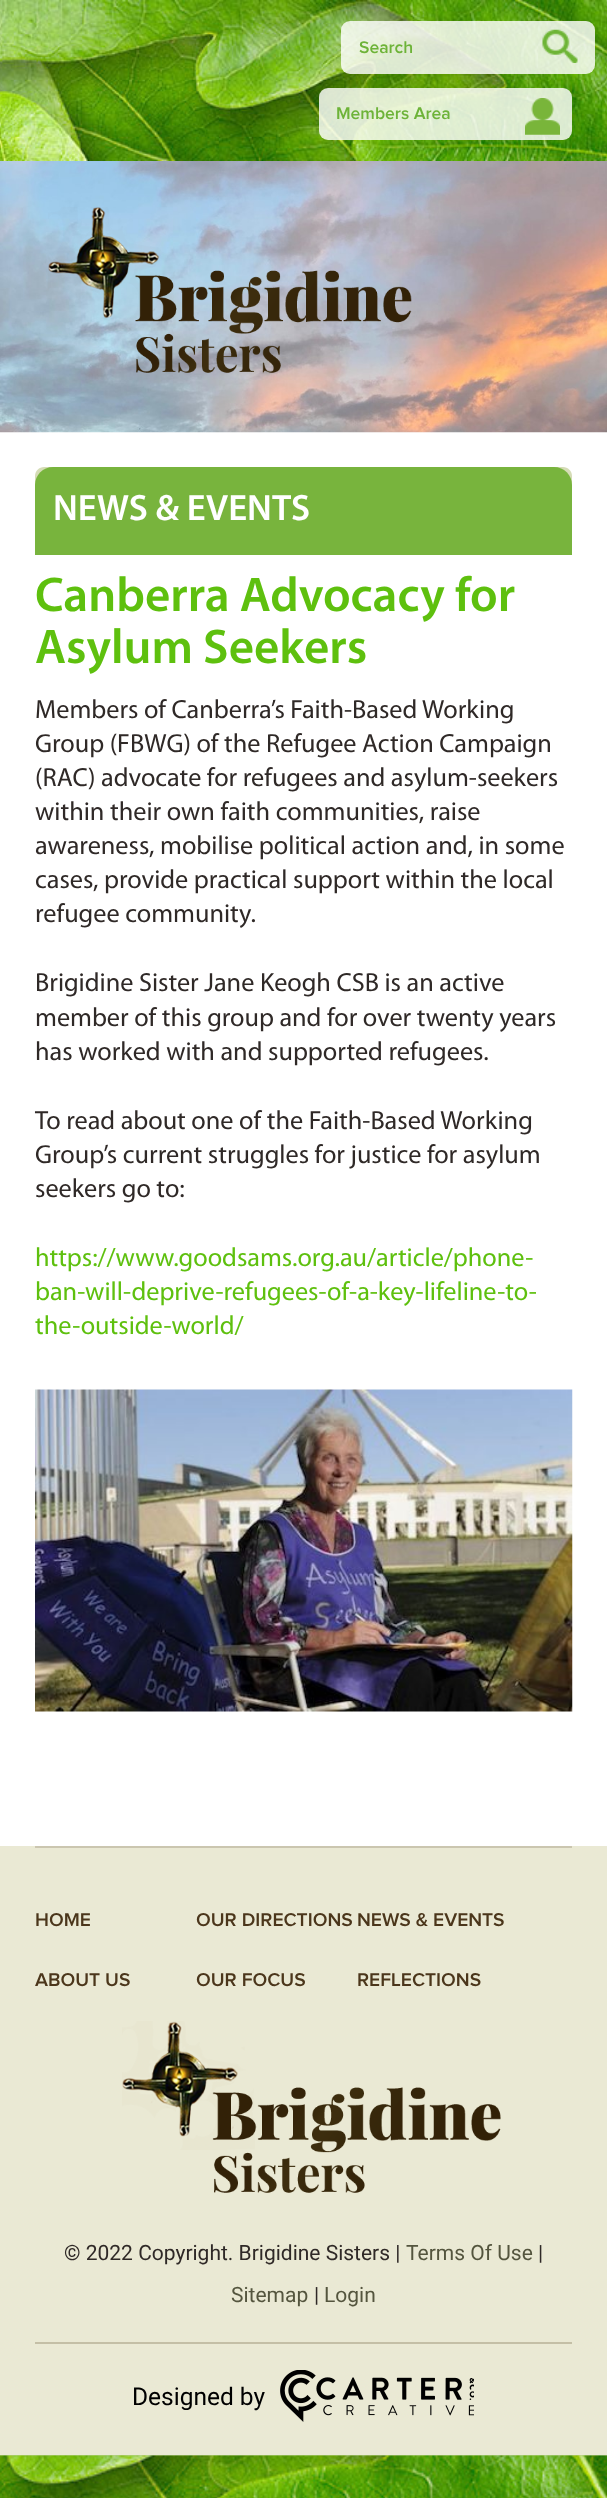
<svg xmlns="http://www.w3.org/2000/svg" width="607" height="2498">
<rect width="100%" height="100%" fill="#fff"/>
<image x="0" y="0" width="607" height="161" href="media/1.png"/>
<rect x="341" y="21" width="254" height="53" rx="9" fill="#ffffffd1"/>
<text x="359" y="53" style="font-family:Proxima Nova;font-size:17.5px;font-weight:600;fill:#6db338">Search</text>
<image x="542" y="29" width="36" height="34" href="media/2.png"/>
<rect x="319" y="88" width="253" height="52" rx="9" fill="#ffffffd1"/>
<text x="336" y="119" style="font-family:Proxima Nova;font-size:17.5px;font-weight:600;fill:#6db338">Members Area</text>
<image x="525" y="98" width="35" height="37" href="media/3.png"/>
<image x="0" y="161" width="607" height="272" href="media/4.png"/>
<image x="48" y="207" width="364" height="166" href="media/5.png"/>
<path d="M44 467h519c5 0 9 4 9 9v79h-537v-79c0-5 4-9 9-9z" fill="#d5dcb6"/>
<path d="M53 467h501c10 0 18 8 18 18v70h-537v-70c0-10 8-18 18-18z" fill="#78b43d"/>
<text x="53" y="520" style="font-family:Myriad;font-size:36.75px;font-weight:600;fill:#fff">NEWS &amp; EVENTS</text>
<text x="35" y="611" style="font-family:Myriad;font-size:49px;font-weight:600;fill:#5ec00e">Canberra Advocacy for</text>
<text x="35" y="663" style="font-family:Myriad;font-size:49px;font-weight:600;fill:#5ec00e">Asylum Seekers</text>
<text x="35" y="718" style="font-family:Myriad;font-size:26.25px;fill:#2f2927">Members of Canberra’s Faith-Based Working</text>
<text x="35" y="752" style="font-family:Myriad;font-size:26.25px;fill:#2f2927">Group (FBWG) of the Refugee Action Campaign</text>
<text x="35" y="786" style="font-family:Myriad;font-size:26.25px;fill:#2f2927">(RAC) advocate for refugees and asylum-seekers</text>
<text x="35" y="820" style="font-family:Myriad;font-size:26.25px;fill:#2f2927">within their own faith communities, raise</text>
<text x="35" y="854" style="font-family:Myriad;font-size:26.25px;fill:#2f2927">awareness, mobilise political action and, in some</text>
<text x="35" y="888" style="font-family:Myriad;font-size:26.25px;fill:#2f2927">cases, provide practical support within the local</text>
<text x="35" y="922" style="font-family:Myriad;font-size:26.25px;fill:#2f2927">refugee community.</text>
<text x="35" y="991" style="font-family:Myriad;font-size:26.25px;fill:#2f2927">Brigidine Sister Jane Keogh CSB is an active</text>
<text x="35" y="1026" style="font-family:Myriad;font-size:26.25px;fill:#2f2927">member of this group and for over twenty years</text>
<text x="35" y="1060" style="font-family:Myriad;font-size:26.25px;fill:#2f2927">has worked with and supported refugees.</text>
<text x="35" y="1129" style="font-family:Myriad;font-size:26.25px;fill:#2f2927">To read about one of the Faith-Based Working</text>
<text x="35" y="1163" style="font-family:Myriad;font-size:26.25px;fill:#2f2927">Group’s current struggles for justice for asylum</text>
<text x="35" y="1197" style="font-family:Myriad;font-size:26.25px;fill:#2f2927">seekers go to:</text>
<text x="35" y="1266" style="font-family:Myriad;font-size:26.25px;fill:#5ec00e">https://www.goodsams.org.au/article/phone-</text>
<text x="35" y="1300" style="font-family:Myriad;font-size:26.25px;fill:#5ec00e">ban-will-deprive-refugees-of-a-key-lifeline-to-</text>
<text x="35" y="1334" style="font-family:Myriad;font-size:26.25px;fill:#5ec00e">the-outside-world/</text>
<image x="35" y="1389" width="538" height="323" href="media/6.png"/>
<rect y="1846" width="607" height="610" fill="#eae9d4"/>
<rect x="35" y="1846" width="537" height="2" fill="#cbc6b0"/>
<text x="35" y="1926" style="font-family:Proxima Nova;font-size:19.25px;font-weight:600;fill:#4b361b">HOME</text>
<text x="196" y="1926" style="font-family:Proxima Nova;font-size:19.25px;font-weight:600;fill:#4b361b">OUR DIRECTIONS</text>
<text x="357" y="1926" style="font-family:Proxima Nova;font-size:19.25px;font-weight:600;fill:#4b361b">NEWS &amp; EVENTS</text>
<text x="35" y="1986" style="font-family:Proxima Nova;font-size:19.25px;font-weight:600;fill:#4b361b">ABOUT US</text>
<text x="196" y="1986" style="font-family:Proxima Nova;font-size:19.25px;font-weight:600;fill:#4b361b">OUR FOCUS</text>
<text x="357" y="1986" style="font-family:Proxima Nova;font-size:19.25px;font-weight:600;fill:#4b361b">REFLECTIONS</text>
<image x="122" y="2021" width="379" height="172" href="media/7.png"/>
<text x="64" y="2260" style="font-family:Roboto;font-size:21px;fill:#2f2927">© 2022 Copyright. Brigidine Sisters |</text>
<text x="406" y="2260" style="font-family:Roboto;font-size:21px;fill:#54553e">Terms Of Use</text>
<text x="538" y="2260" style="font-family:Roboto;font-size:21px;fill:#2f2927">|</text>
<text x="231" y="2302" style="font-family:Roboto;font-size:21px;fill:#54553e">Sitemap</text>
<text x="314" y="2302" style="font-family:Roboto;font-size:21px;fill:#2f2927">|</text>
<text x="324" y="2302" style="font-family:Roboto;font-size:21px;fill:#54553e">Login</text>
<rect x="35" y="2342" width="537" height="2" fill="#c4bfa6"/>
<text x="132" y="2405" style="font-family:Roboto;font-size:24.5px;fill:#000">Designed by</text>
<image x="280" y="2370" width="194" height="52" href="media/8.png"/>
<image x="0" y="2455" width="607" height="43" href="media/9.png"/>
</svg>
